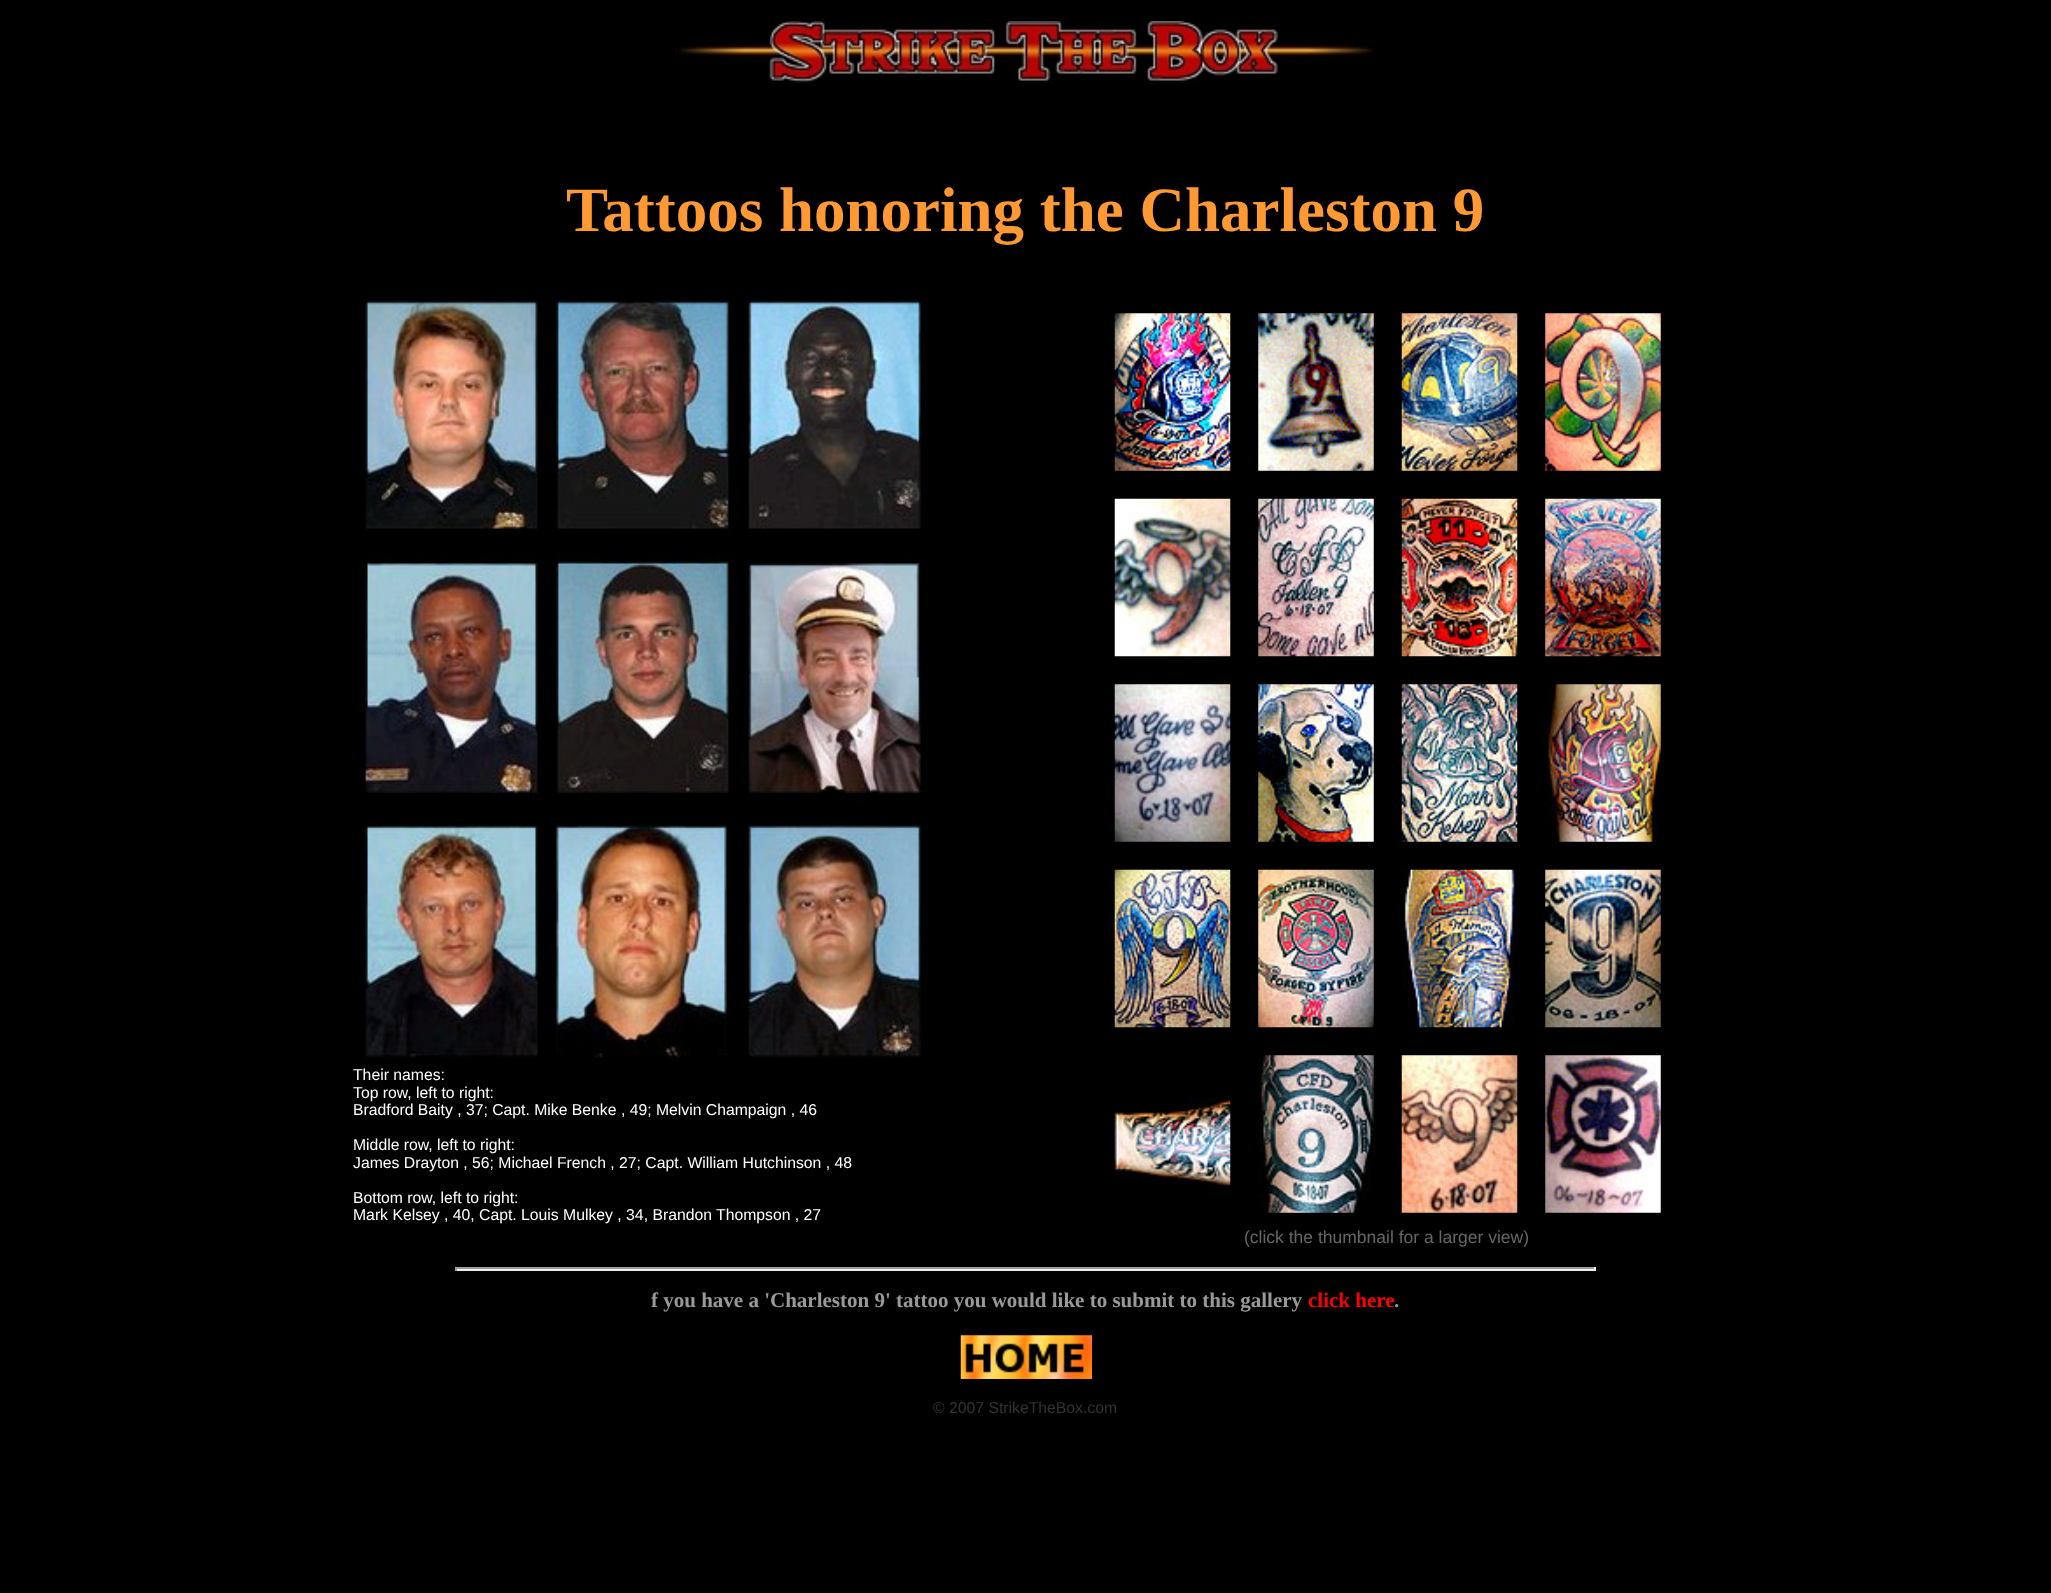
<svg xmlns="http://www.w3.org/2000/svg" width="2051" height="1593">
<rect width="100%" height="100%" fill="#000"/>
<image x="675" y="21" width="699" height="63" href="media/1.png"/>
<text x="566" y="231" style="font-family:Liberation Serif;font-size:63px;font-weight:bold;fill:#f93">Tattoos honoring the Charleston 9</text>
<image x="359" y="299" width="568" height="759" href="media/2.png"/>
<text x="353" y="1080" style="font-family:Liberation Sans;font-size:15.75px;fill:#fff">Their names:</text>
<text x="353" y="1098" style="font-family:Liberation Sans;font-size:15.75px;fill:#fff">Top row, left to right:</text>
<text x="353" y="1115" style="font-family:Liberation Sans;font-size:15.75px;fill:#fff">Bradford Baity , 37; Capt. Mike Benke , 49; Melvin Champaign , 46</text>
<text x="353" y="1150" style="font-family:Liberation Sans;font-size:15.75px;fill:#fff">Middle row, left to right:</text>
<text x="353" y="1168" style="font-family:Liberation Sans;font-size:15.75px;fill:#fff">James Drayton , 56; Michael French , 27; Capt. William Hutchinson , 48</text>
<text x="353" y="1203" style="font-family:Liberation Sans;font-size:15.75px;fill:#fff">Bottom row, left to right:</text>
<text x="353" y="1220" style="font-family:Liberation Sans;font-size:15.75px;fill:#fff">Mark Kelsey , 40, Capt. Louis Mulkey , 34, Brandon Thompson , 27</text>
<image x="1114" y="313" width="117" height="158" href="media/3.png"/>
<image x="1258" y="313" width="116" height="158" href="media/4.png"/>
<image x="1401" y="313" width="117" height="158" href="media/5.png"/>
<image x="1545" y="313" width="116" height="158" href="media/6.png"/>
<image x="1114" y="498" width="117" height="159" href="media/7.png"/>
<image x="1258" y="498" width="116" height="159" href="media/8.png"/>
<image x="1401" y="498" width="117" height="159" href="media/9.png"/>
<image x="1545" y="498" width="116" height="159" href="media/10.png"/>
<image x="1114" y="684" width="117" height="158" href="media/11.png"/>
<image x="1258" y="684" width="116" height="158" href="media/12.png"/>
<image x="1401" y="684" width="117" height="158" href="media/13.png"/>
<image x="1545" y="684" width="116" height="158" href="media/14.png"/>
<image x="1114" y="869" width="117" height="159" href="media/15.png"/>
<image x="1258" y="869" width="116" height="159" href="media/16.png"/>
<image x="1401" y="869" width="114" height="159" href="media/17.png"/>
<image x="1545" y="869" width="116" height="159" href="media/18.png"/>
<image x="1114" y="1097" width="117" height="98" href="media/19.png"/>
<image x="1258" y="1055" width="116" height="158" href="media/20.png"/>
<image x="1401" y="1055" width="117" height="158" href="media/21.png"/>
<image x="1545" y="1055" width="116" height="158" href="media/22.png"/>
<text x="1244" y="1243" style="font-family:Liberation Sans;font-size:17.5px;fill:#666">(click the thumbnail for a larger view)</text>
<rect x="455" y="1267" width="1141" height="2" fill="#9f9f9f"/>
<rect x="1594" y="1267" width="2" height="4" fill="#eee"/>
<rect x="455" y="1269" width="1141" height="2" fill="#eee"/>
<rect x="455" y="1267" width="2" height="4" fill="#9f9f9f"/>
<text x="651" y="1307" style="font-family:Liberation Serif;font-size:21px;font-weight:bold;fill:#999">f you have a 'Charleston 9' tattoo you would like to submit to this gallery</text>
<text x="1308" y="1307" style="font-family:Liberation Serif;font-size:21px;font-weight:bold;fill:#f00">click here</text>
<text x="1394" y="1307" style="font-family:Liberation Serif;font-size:21px;font-weight:bold;fill:#999">.</text>
<image x="960" y="1335" width="132" height="44" href="media/23.png"/>
<text x="933" y="1413" style="font-family:Liberation Sans;font-size:15.75px;fill:#333">© 2007 StrikeTheBox.com</text>
</svg>
